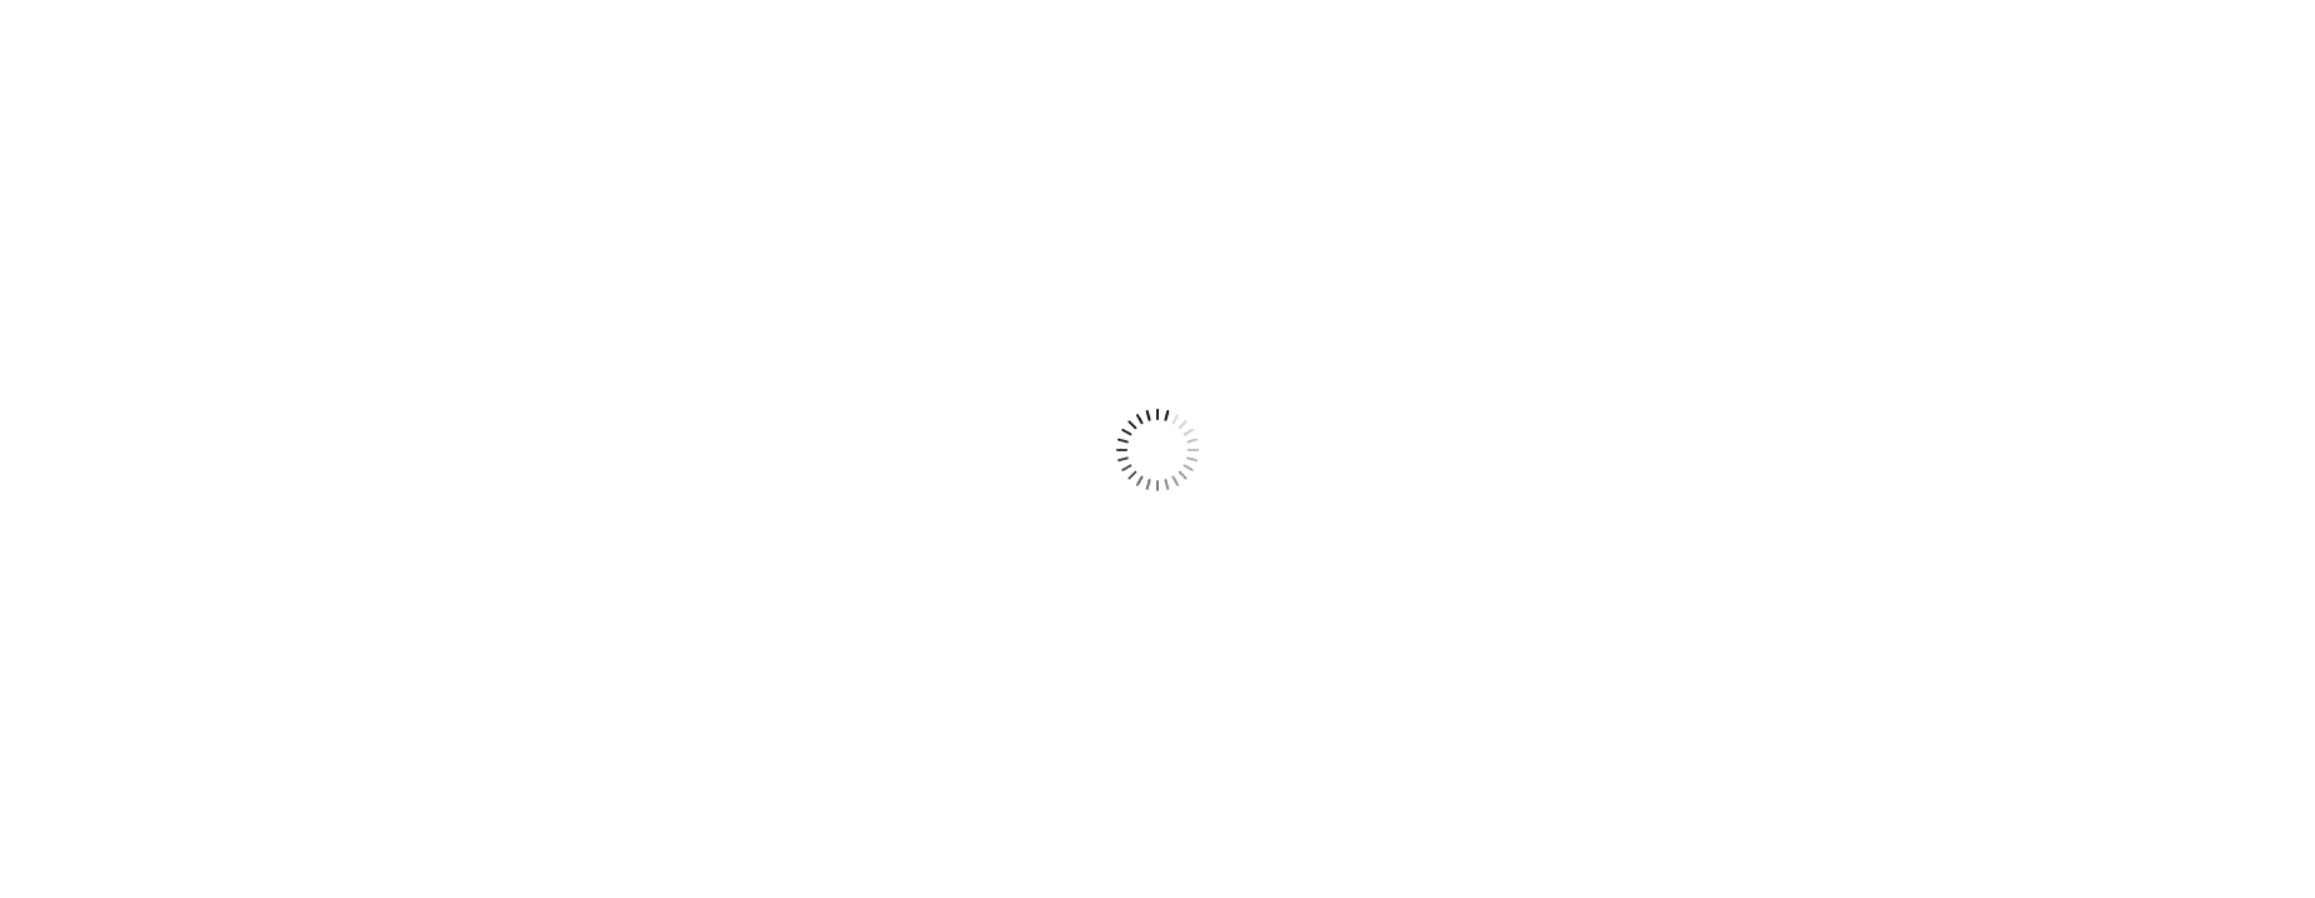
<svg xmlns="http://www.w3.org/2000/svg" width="2315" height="898">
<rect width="100%" height="100%" fill="#fff"/>
<image x="1116" y="408" width="83" height="84" href="media/1.png"/>
</svg>
